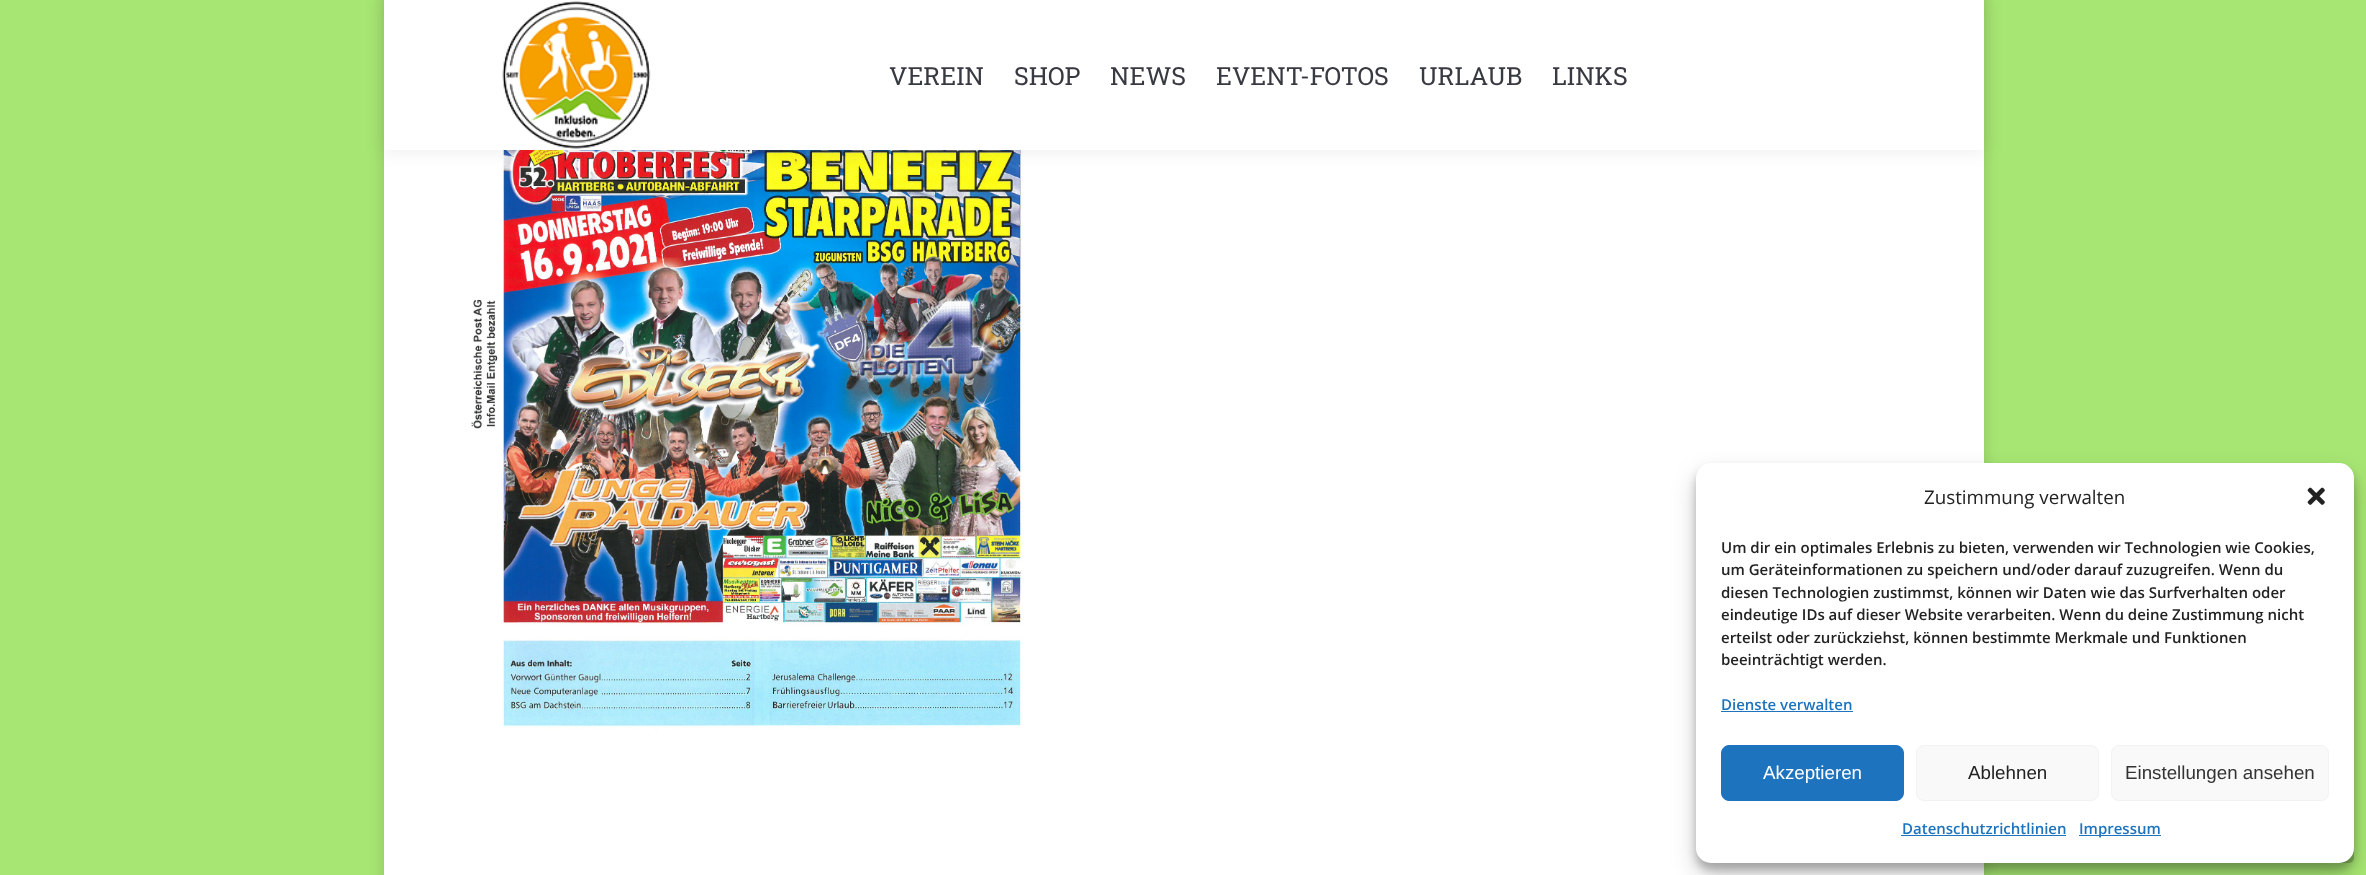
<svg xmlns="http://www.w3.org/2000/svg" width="2366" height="875">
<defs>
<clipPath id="clip1"><path d="M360 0h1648v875h-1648zm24-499h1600v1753h-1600z" clip-rule="evenodd"/></clipPath>
</defs>
<rect width="100%" height="100%" fill="#a7e673"/>
<rect x="384" y="150" width="1600" height="671" fill="#fff"/>
<g clip-path="url(#clip1)">
<rect x="384" y="-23" width="1600" height="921" fill="#00000026" filter="blur(7.5px)"/>
</g>
<image x="471" y="150" width="564" height="580" href="media/1.png"/>
<rect x="384" y="821" width="1600" height="54" fill="#fff"/>
<rect x="2304" y="813" width="50" height="50" rx="5" fill="#00000033"/>
<rect x="383" y="-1" width="1602" height="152" fill="#00000012" filter="blur(9.5px)"/>
<rect x="384" width="1600" height="150" fill="#fff"/>
<image x="502" y="1" width="149" height="148" href="media/2.png"/>
<text x="889" y="85" style="font-family:Roboto Slab;font-size:25px;fill:#373a41">VEREIN</text>
<text x="1014" y="85" style="font-family:Roboto Slab;font-size:25px;fill:#373a41">SHOP</text>
<text x="1110" y="85" style="font-family:Roboto Slab;font-size:25px;fill:#373a41">NEWS</text>
<text x="1216" y="85" style="font-family:Roboto Slab;font-size:25px;fill:#373a41">EVENT-FOTOS</text>
<text x="1419" y="85" style="font-family:Roboto Slab;font-size:25px;fill:#373a41">URLAUB</text>
<text x="1552" y="85" style="font-family:Roboto Slab;font-size:25px;fill:#373a41">LINKS</text>
<rect x="1696" y="470" width="658" height="400" rx="15" fill="#0000003b" filter="blur(4px)"/>
<rect x="1696" y="475" width="658" height="400" rx="15" fill="#00000030" filter="blur(12.5px)"/>
<rect x="1696" y="463" width="658" height="400" rx="15" fill="#fff"/>
<text x="1924" y="504" style="font-family:Open Sans;font-size:18.75px;fill:#222">Zustimmung verwalten</text>
<image x="2307" y="487" width="18" height="18" href="media/3.png"/>
<text x="1721" y="553" style="font-family:Open Sans;font-size:15px;font-weight:600;fill:#222">Um dir ein optimales Erlebnis zu bieten, verwenden wir Technologien wie Cookies,</text>
<text x="1721" y="575" style="font-family:Open Sans;font-size:15px;font-weight:600;fill:#222">um Geräteinformationen zu speichern und/oder darauf zuzugreifen. Wenn du</text>
<text x="1721" y="598" style="font-family:Open Sans;font-size:15px;font-weight:600;fill:#222">diesen Technologien zustimmst, können wir Daten wie das Surfverhalten oder</text>
<text x="1721" y="620" style="font-family:Open Sans;font-size:15px;font-weight:600;fill:#222">eindeutige IDs auf dieser Website verarbeiten. Wenn du deine Zustimmung nicht</text>
<text x="1721" y="643" style="font-family:Open Sans;font-size:15px;font-weight:600;fill:#222">erteilst oder zurückziehst, können bestimmte Merkmale und Funktionen</text>
<text x="1721" y="665" style="font-family:Open Sans;font-size:15px;font-weight:600;fill:#222">beeinträchtigt werden.</text>
<text x="1721" y="710" style="font-family:Open Sans;font-size:15px;font-weight:600;fill:#1e73be">Dienste verwalten</text>
<rect x="1721" y="711" width="132" height="1" fill="#1e73be"/>
<rect x="1721.5" y="745.5" width="182" height="55" rx="7.5" fill="#1e73be" stroke="#1e73be"/>
<text x="1763" y="779" style="font-family:Liberation Sans;font-size:18.75px;fill:#fff">Akzeptieren</text>
<rect x="1916.5" y="745.5" width="182" height="55" rx="7.5" fill="#f9f9f9" stroke="#f2f2f2"/>
<text x="1968" y="779" style="font-family:Liberation Sans;font-size:18.75px;fill:#222">Ablehnen</text>
<rect x="2111.5" y="745.5" width="217" height="55" rx="7.5" fill="#f9f9f9" stroke="#f2f2f2"/>
<text x="2125" y="779" style="font-family:Liberation Sans;font-size:18.75px;fill:#333">Einstellungen ansehen</text>
<text x="1902" y="834" style="font-family:Open Sans;font-size:15px;font-weight:600;fill:#1e73be">Datenschutzrichtlinien</text>
<rect x="1901" y="835" width="165" height="1" fill="#1e73be"/>
<rect x="2079" y="835" width="82" height="1" fill="#1e73be"/>
<text x="2079" y="834" style="font-family:Open Sans;font-size:15px;font-weight:600;fill:#1e73be">Impressum</text>
</svg>
